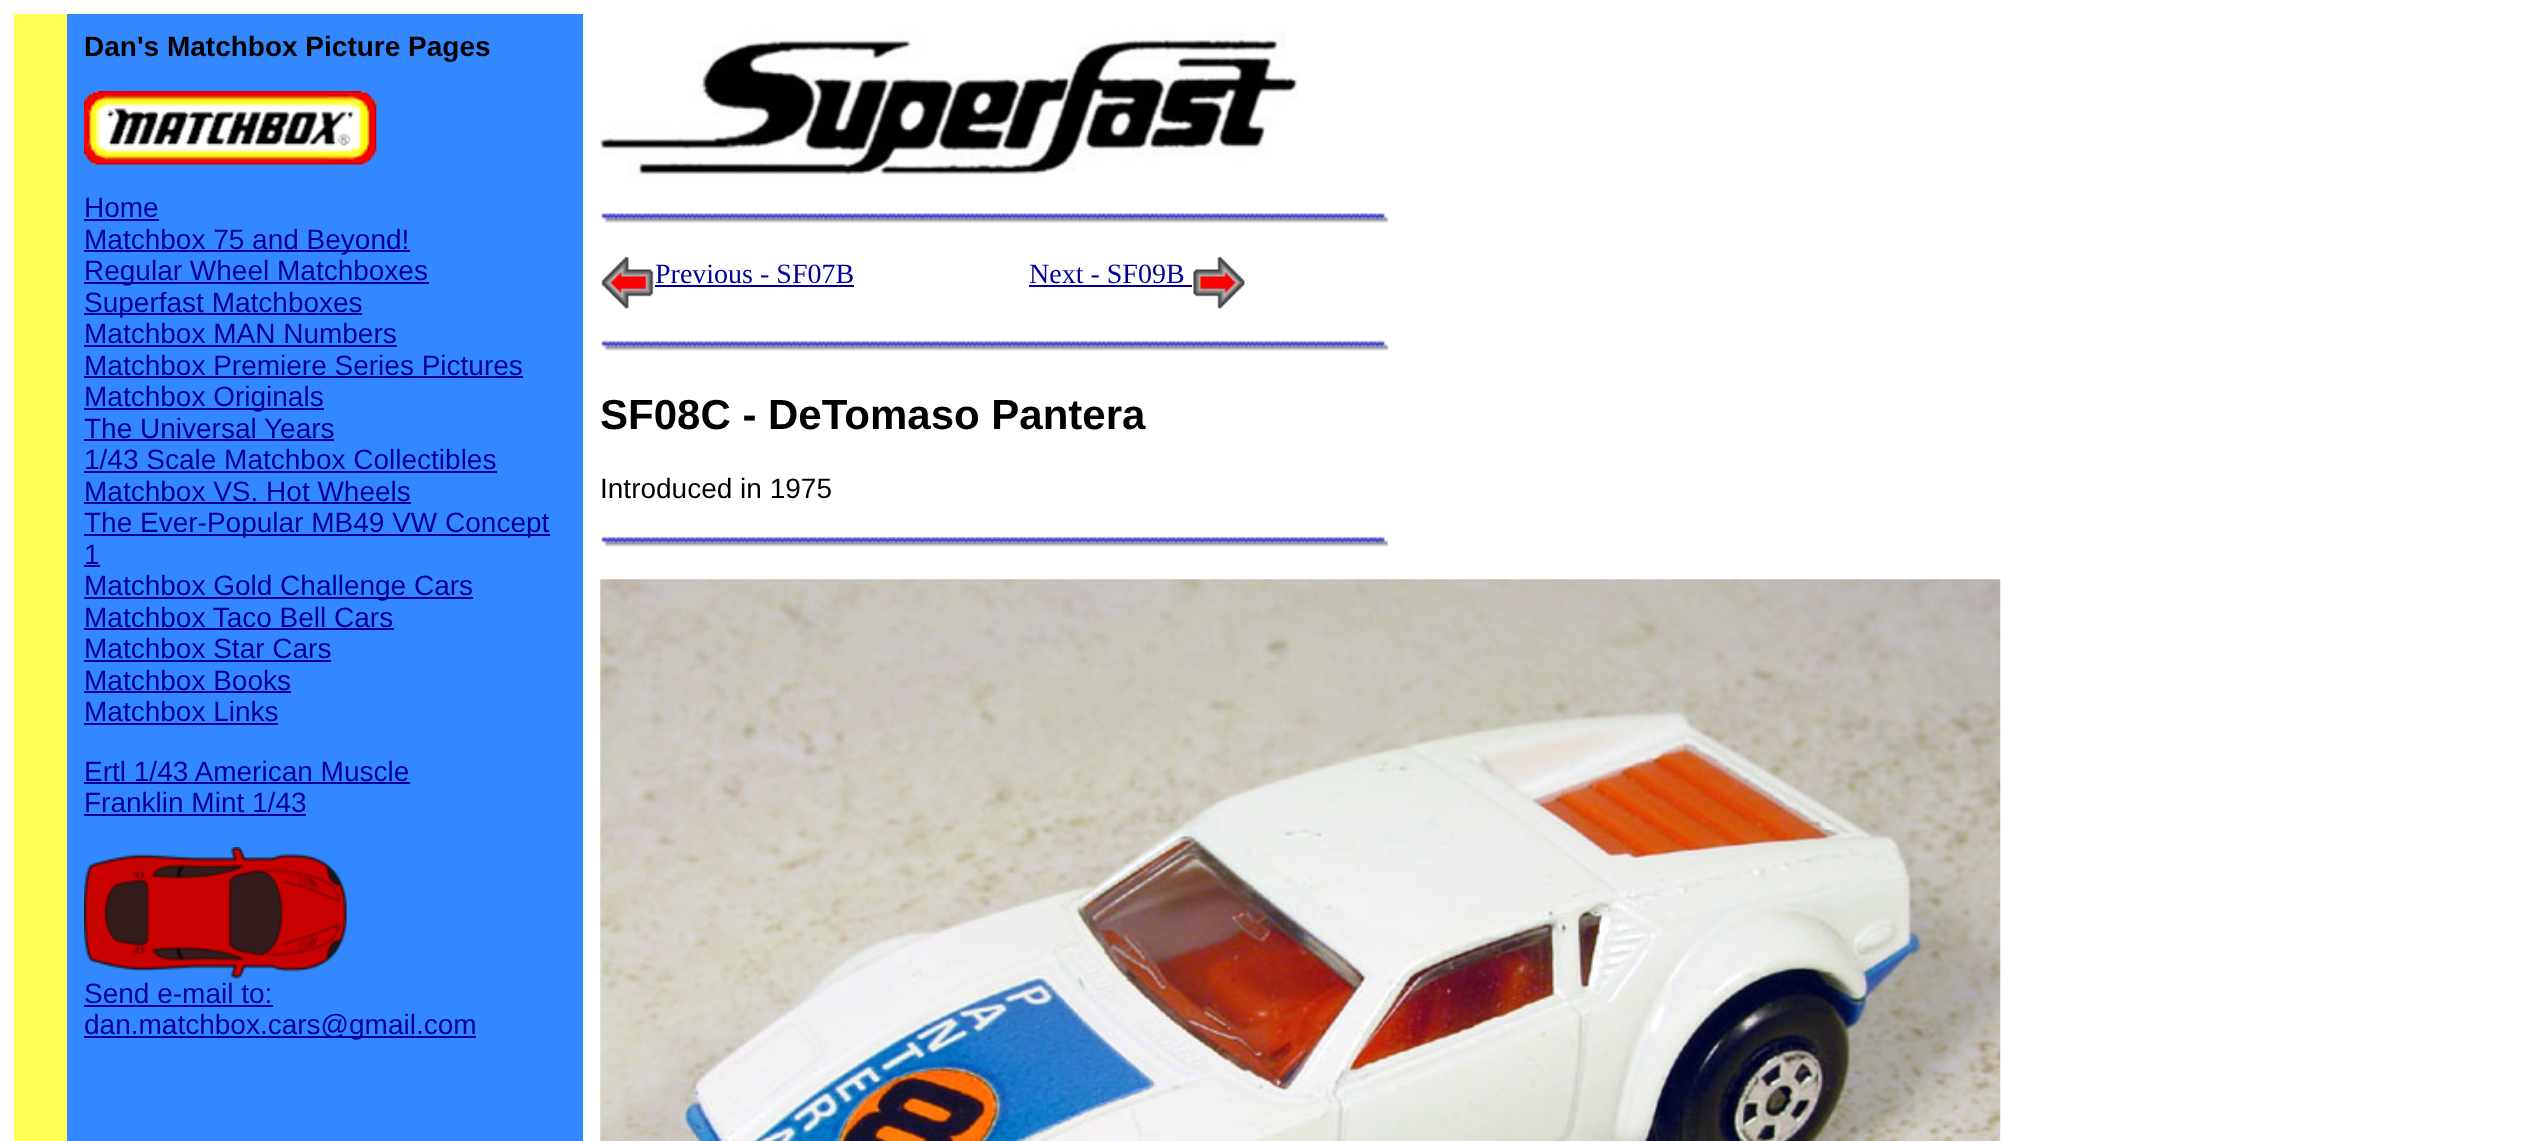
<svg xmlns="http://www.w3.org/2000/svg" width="2542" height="1141">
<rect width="100%" height="100%" fill="#fff"/>
<rect x="67" y="14" width="516" height="1127" fill="#38f"/>
<rect x="14" y="14" width="53" height="1127" fill="#ff5"/>
<text x="84" y="56" style="font-family:Liberation Sans;font-size:28px;font-weight:bold;fill:#000">Dan's Matchbox Picture Pages</text>
<image x="84" y="91" width="293" height="74" href="media/1.png"/>
<text x="84" y="217" style="font-family:Liberation Sans;font-size:28px;fill:#009">Home</text>
<rect x="84" y="219" width="75" height="2" fill="#009"/>
<rect x="84" y="250" width="326" height="2" fill="#009"/>
<text x="84" y="249" style="font-family:Liberation Sans;font-size:28px;fill:#009">Matchbox 75 and Beyond!</text>
<rect x="84" y="282" width="345" height="2" fill="#009"/>
<text x="84" y="280" style="font-family:Liberation Sans;font-size:28px;fill:#009">Regular Wheel Matchboxes</text>
<rect x="84" y="313" width="278" height="2" fill="#009"/>
<text x="84" y="312" style="font-family:Liberation Sans;font-size:28px;fill:#009">Superfast Matchboxes</text>
<text x="84" y="343" style="font-family:Liberation Sans;font-size:28px;fill:#009">Matchbox MAN Numbers</text>
<rect x="84" y="345" width="313" height="2" fill="#009"/>
<text x="84" y="375" style="font-family:Liberation Sans;font-size:28px;fill:#009">Matchbox Premiere Series Pictures</text>
<rect x="84" y="376" width="439" height="2" fill="#009"/>
<rect x="84" y="408" width="240" height="2" fill="#009"/>
<text x="84" y="406" style="font-family:Liberation Sans;font-size:28px;fill:#009">Matchbox Originals</text>
<text x="84" y="438" style="font-family:Liberation Sans;font-size:28px;fill:#009">The Universal Years</text>
<rect x="84" y="439" width="250" height="2" fill="#009"/>
<text x="84" y="469" style="font-family:Liberation Sans;font-size:28px;fill:#009">1/43 Scale Matchbox Collectibles</text>
<rect x="84" y="471" width="413" height="2" fill="#009"/>
<text x="84" y="501" style="font-family:Liberation Sans;font-size:28px;fill:#009">Matchbox VS. Hot Wheels</text>
<rect x="84" y="502" width="327" height="2" fill="#009"/>
<rect x="84" y="534" width="466" height="2" fill="#009"/>
<text x="84" y="532" style="font-family:Liberation Sans;font-size:28px;fill:#009">The Ever-Popular MB49 VW Concept</text>
<text x="84" y="564" style="font-family:Liberation Sans;font-size:28px;fill:#009">1</text>
<rect x="84" y="565" width="16" height="2" fill="#009"/>
<rect x="84" y="597" width="389" height="2" fill="#009"/>
<text x="84" y="595" style="font-family:Liberation Sans;font-size:28px;fill:#009">Matchbox Gold Challenge Cars</text>
<text x="84" y="627" style="font-family:Liberation Sans;font-size:28px;fill:#009">Matchbox Taco Bell Cars</text>
<rect x="84" y="628" width="310" height="2" fill="#009"/>
<text x="84" y="658" style="font-family:Liberation Sans;font-size:28px;fill:#009">Matchbox Star Cars</text>
<rect x="84" y="660" width="247" height="2" fill="#009"/>
<text x="84" y="690" style="font-family:Liberation Sans;font-size:28px;fill:#009">Matchbox Books</text>
<rect x="84" y="691" width="207" height="2" fill="#009"/>
<text x="84" y="721" style="font-family:Liberation Sans;font-size:28px;fill:#009">Matchbox Links</text>
<rect x="84" y="723" width="194" height="2" fill="#009"/>
<text x="84" y="781" style="font-family:Liberation Sans;font-size:28px;fill:#009">Ertl 1/43 American Muscle</text>
<rect x="84" y="782" width="326" height="2" fill="#009"/>
<text x="84" y="812" style="font-family:Liberation Sans;font-size:28px;fill:#009">Franklin Mint 1/43</text>
<rect x="84" y="814" width="222" height="2" fill="#009"/>
<image x="84" y="847" width="263" height="132" href="media/2.png"/>
<text x="84" y="1003" style="font-family:Liberation Sans;font-size:28px;fill:#009">Send e-mail to:</text>
<rect x="84" y="1005" width="189" height="2" fill="#009"/>
<rect x="84" y="1036" width="392" height="2" fill="#009"/>
<text x="84" y="1034" style="font-family:Liberation Sans;font-size:28px;fill:#009">dan.matchbox.cars@gmail.com</text>
<image x="600" y="31" width="699" height="151" href="media/3.png"/>
<image x="601" y="213" width="788" height="10" href="media/4.png"/>
<image x="601" y="256" width="53" height="53" href="media/5.png"/>
<text x="655" y="283" style="font-family:Liberation Serif;font-size:28px;fill:#009">Previous - SF07B</text>
<rect x="655" y="285" width="199" height="2" fill="#009"/>
<text x="1029" y="283" style="font-family:Liberation Serif;font-size:28px;fill:#009">Next - SF09B</text>
<rect x="1029" y="285" width="163" height="2" fill="#009"/>
<image x="1193" y="256" width="52" height="53" href="media/6.png"/>
<image x="601" y="340" width="788" height="11" href="media/7.png"/>
<text x="600" y="429" style="font-family:Liberation Sans;font-size:42px;font-weight:bold;fill:#000">SF08C - DeTomaso Pantera</text>
<text x="600" y="498" style="font-family:Liberation Sans;font-size:28px;fill:#000">Introduced in 1975</text>
<image x="601" y="536" width="788" height="11" href="media/7.png"/>
<image x="600" y="579" width="1401" height="562" href="media/8.png"/>
</svg>
